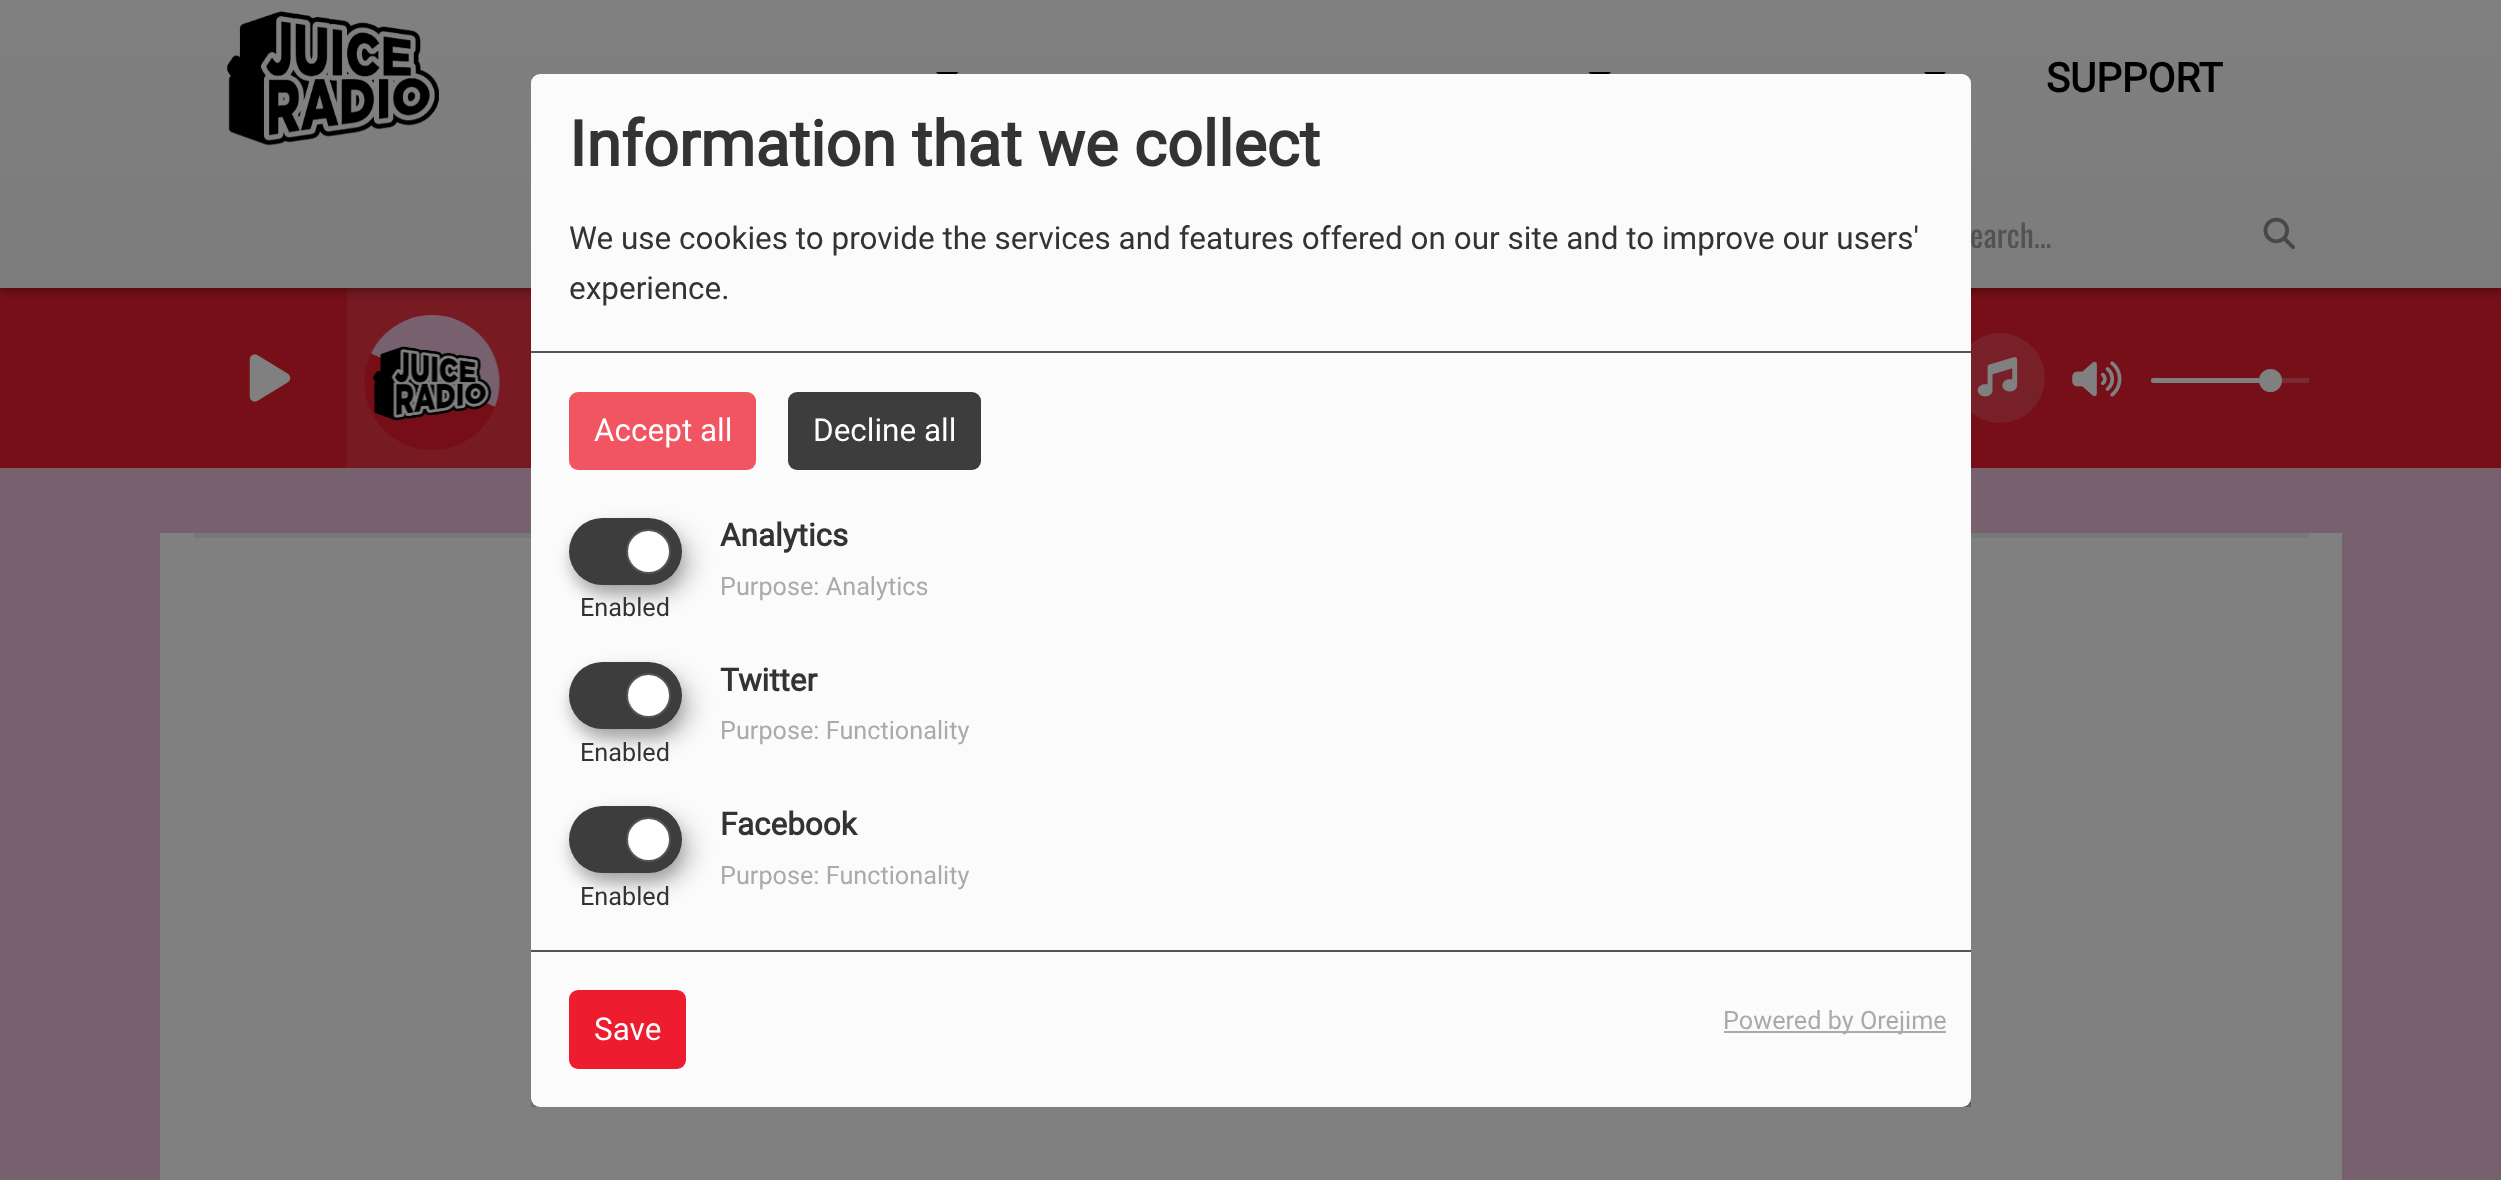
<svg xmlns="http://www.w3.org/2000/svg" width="2501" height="1180">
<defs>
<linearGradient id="g1" gradientUnits="userSpaceOnUse" x1="1251" y1="0" x2="1251" y2="288"><stop offset="0" stop-color="#808080"/><stop offset="1" stop-color="#7c7c7c"/></linearGradient>
<clipPath id="clip1"><rect x="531" y="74" width="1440" height="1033"/></clipPath>
</defs>
<rect width="100%" height="100%" fill="#78616e"/>
<rect y="288" width="2501" height="180" fill="#770f18"/>
<rect x="347" y="288" width="184" height="180" fill="#771a22"/>
<rect y="2" width="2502" height="288" fill="#00000066" filter="blur(5.5px)"/>
<rect width="2501" height="288" fill="url(#g1)"/>
<path d="M936 72h22.5l-11.5 11z" fill="#000"/>
<path d="M1588.5 72h22.5l-11 11z" fill="#000"/>
<path d="M1924 72h22l-11 11z" fill="#000"/>
<circle cx="2000" cy="378" r="45" fill="#782027"/>
<image x="1977" y="357" width="41" height="40" href="media/5.png"/>
<rect x="160" y="533" width="2182" height="647" fill="#808080"/>
<rect x="194" y="533" width="2115" height="5" fill="#777"/>
<g clip-path="url(#clip1)">
<rect x="542" y="86" width="1440" height="1032" rx="9" fill="#00000030" filter="blur(11px)"/>
<rect x="531" y="83" width="1440" height="1033" rx="9" fill="#00000033" filter="blur(7px)"/>
</g>
<rect x="531" y="74" width="1440" height="1033" rx="9" fill="#fbfbfb"/>
<rect x="531" y="351" width="1440" height="2" fill="#555"/>
<text x="569" y="166" style="font-family:Roboto;font-size:63px;font-weight:bold;fill:#333">Information that we collect</text>
<text x="569" y="249" style="font-family:Roboto;font-size:31.5px;fill:#333">We use cookies to provide the services and features offered on our site and to improve our users'</text>
<text x="569" y="299" style="font-family:Roboto;font-size:31.5px;fill:#333">experience.</text>
<rect x="569" y="392" width="187" height="78" rx="9" fill="#f15562"/>
<text x="594" y="441" style="font-family:Roboto;font-size:31.5px;fill:#fff">Accept all</text>
<rect x="788" y="392" width="193" height="78" rx="9" fill="#3e3d3d"/>
<text x="813" y="441" style="font-family:Roboto;font-size:31.5px;fill:#fff">Decline all</text>
<text x="720" y="546" style="font-family:Roboto;font-size:31.5px;font-weight:bold;fill:#333">Analytics</text>
<rect x="581" y="529" width="112" height="67" rx="33.5" fill="#00000030" filter="blur(11px)"/>
<rect x="569" y="527" width="113" height="67" rx="33.5" fill="#00000033" filter="blur(7px)"/>
<rect x="569" y="518" width="113" height="67" rx="33.5" fill="#3e3d3d"/>
<circle cx="648.5" cy="551.5" r="21.5" fill="#fff" stroke="#555" stroke-width="2"/>
<text x="580" y="616" style="font-family:Roboto;font-size:25.25px;fill:#333">Enabled</text>
<text x="720" y="595" style="font-family:Roboto;font-size:25.25px;fill:#aaa">Purpose: Analytics</text>
<text x="720" y="691" style="font-family:Roboto;font-size:31.5px;font-weight:bold;fill:#333">Twitter</text>
<rect x="581" y="673" width="112" height="67" rx="33.5" fill="#00000030" filter="blur(11px)"/>
<rect x="569" y="671" width="113" height="67" rx="33.5" fill="#00000033" filter="blur(7px)"/>
<rect x="569" y="662" width="113" height="67" rx="33.5" fill="#3e3d3d"/>
<circle cx="648.5" cy="695.5" r="21.5" fill="#fff" stroke="#555" stroke-width="2"/>
<text x="580" y="761" style="font-family:Roboto;font-size:25.25px;fill:#333">Enabled</text>
<text x="720" y="739" style="font-family:Roboto;font-size:25.25px;fill:#aaa">Purpose: Functionality</text>
<text x="720" y="835" style="font-family:Roboto;font-size:31.5px;font-weight:bold;fill:#333">Facebook</text>
<rect x="581" y="817" width="112" height="67" rx="33.5" fill="#00000030" filter="blur(11px)"/>
<rect x="569" y="815" width="113" height="67" rx="33.5" fill="#00000033" filter="blur(7px)"/>
<rect x="569" y="806" width="113" height="67" rx="33.5" fill="#3e3d3d"/>
<circle cx="648.5" cy="839.5" r="21.5" fill="#fff" stroke="#555" stroke-width="2"/>
<text x="580" y="905" style="font-family:Roboto;font-size:25.25px;fill:#333">Enabled</text>
<text x="720" y="884" style="font-family:Roboto;font-size:25.25px;fill:#aaa">Purpose: Functionality</text>
<rect x="531" y="950" width="1440" height="2" fill="#555"/>
<rect x="569" y="990" width="117" height="79" rx="9" fill="#ed1d2f"/>
<text x="594" y="1040" style="font-family:Roboto;font-size:31.5px;fill:#fff">Save</text>
<rect x="1724" y="1031" width="222" height="2" fill="#aaa"/>
<text x="1723" y="1029" style="font-family:Roboto;font-size:25.25px;fill:#aaa">Powered by Orejime</text>
<image x="227" y="11" width="212" height="135" href="media/1.png"/>
<text x="2046" y="92" style="font-family:Roboto;font-size:40.5px;font-weight:bold;fill:#000">SUPPORT</text>
<text x="1970" y="248" style="font-family:Oswald;font-size:31.5px;fill:#525252">earch...</text>
<image x="2263" y="217" width="32" height="33" href="media/2.png"/>
<image x="249" y="354" width="42" height="48" href="media/3.png"/>
<image x="364" y="315" width="136" height="135" href="media/4.png"/>
<image x="2072" y="361" width="50" height="36" href="media/6.png"/>
<rect x="2151" y="378" width="158" height="5" fill="#792b32"/>
<rect x="2151" y="378" width="119" height="5" rx="2.5" fill="#808080"/>
<circle cx="2270.5" cy="380.5" r="11.5" fill="#808080"/>
</svg>
